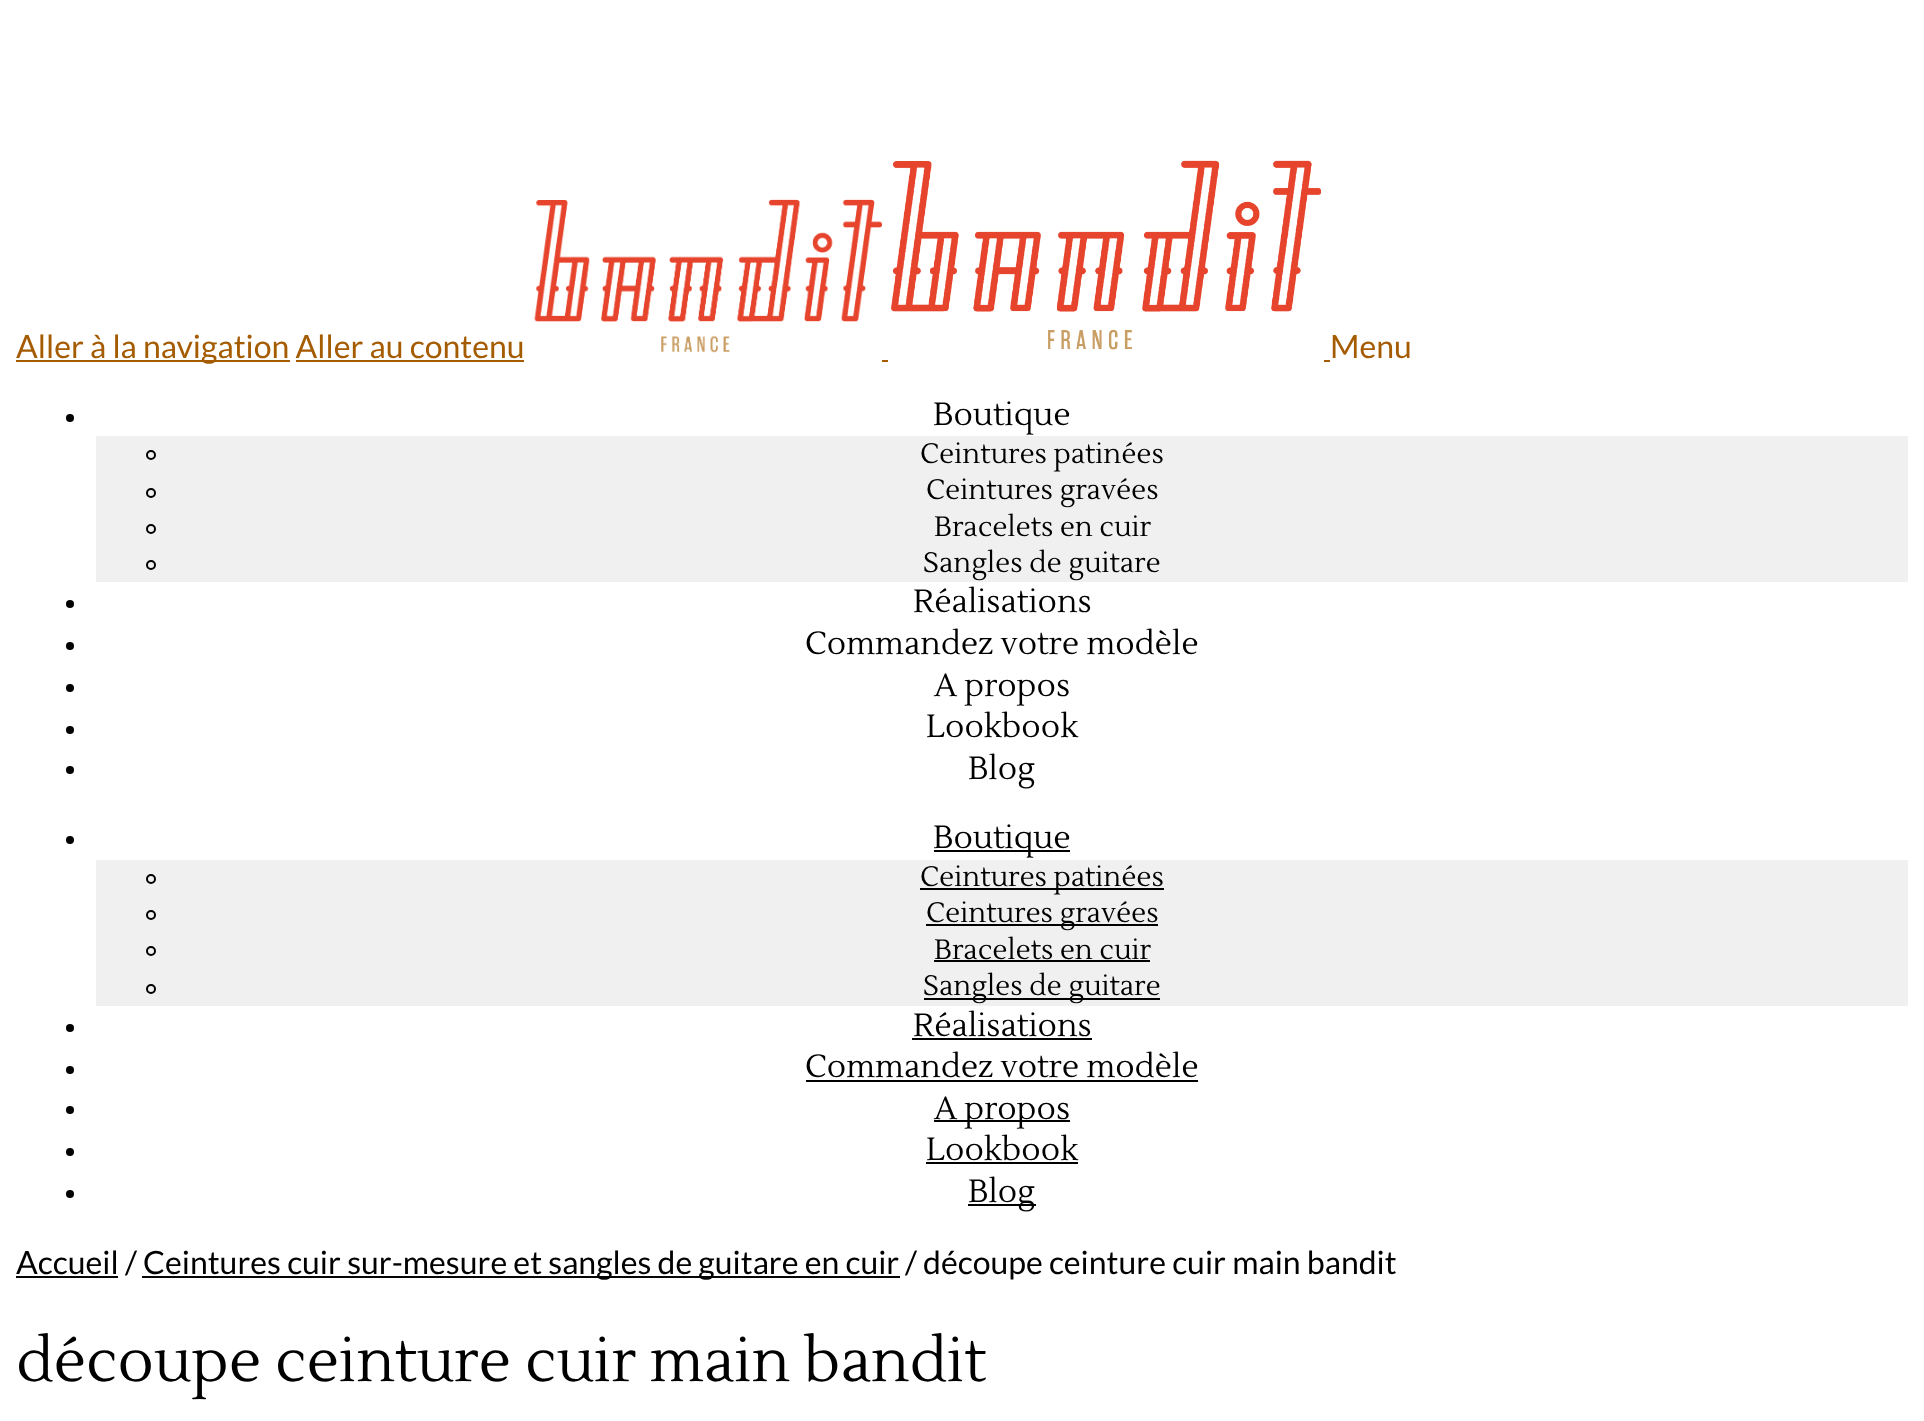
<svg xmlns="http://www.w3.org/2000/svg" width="1924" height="1421">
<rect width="100%" height="100%" fill="#fff"/>
<rect x="16" y="360" width="274" height="2" fill="#a55b00"/>
<text x="16" y="358" style="font-family:Lato;font-size:32px;fill:#a55b00">Aller à la navigation Aller au contenu</text>
<image x="534" y="199" width="348" height="154" href="media/1.png"/>
<image x="891" y="160" width="430" height="190" href="media/2.png"/>
<text x="1330" y="358" style="font-family:Lato;font-size:32px;fill:#a55b00">Menu</text>
<rect x="296" y="360" width="228" height="2" fill="#a55b00"/>
<rect x="882" y="360" width="6" height="2" fill="#a55b00"/>
<rect x="1324" y="360" width="6" height="2" fill="#a55b00"/>
<circle cx="70" cy="418" r="4" fill="#000"/>
<text x="933" y="425" style="font-family:Lustria;font-size:32px;fill:#000">Boutique</text>
<rect x="96" y="436" width="1812" height="146" fill="#f0f0f0"/>
<circle cx="151" cy="455" r="4" fill="none" stroke="#000" stroke-width="2"/>
<text x="920" y="463" style="font-family:Lustria;font-size:28px;fill:#000">Ceintures patinées</text>
<circle cx="151" cy="493" r="4" fill="none" stroke="#000" stroke-width="2"/>
<text x="926" y="499" style="font-family:Lustria;font-size:28px;fill:#000">Ceintures gravées</text>
<circle cx="151" cy="529" r="4" fill="none" stroke="#000" stroke-width="2"/>
<text x="934" y="536" style="font-family:Lustria;font-size:28px;fill:#000">Bracelets en cuir</text>
<circle cx="151" cy="565" r="4" fill="none" stroke="#000" stroke-width="2"/>
<text x="923" y="572" style="font-family:Lustria;font-size:28px;fill:#000">Sangles de guitare</text>
<circle cx="70" cy="604" r="4" fill="#000"/>
<text x="913" y="612" style="font-family:Lustria;font-size:32px;fill:#000">Réalisations</text>
<circle cx="70" cy="646" r="4" fill="#000"/>
<text x="805" y="654" style="font-family:Lustria;font-size:32px;fill:#000">Commandez votre modèle</text>
<circle cx="70" cy="688" r="4" fill="#000"/>
<text x="934" y="696" style="font-family:Lustria;font-size:32px;fill:#000">A propos</text>
<circle cx="70" cy="730" r="4" fill="#000"/>
<text x="926" y="737" style="font-family:Lustria;font-size:32px;fill:#000">Lookbook</text>
<circle cx="70" cy="770" r="4" fill="#000"/>
<text x="968" y="779" style="font-family:Lustria;font-size:32px;fill:#000">Blog</text>
<circle cx="70" cy="840" r="4" fill="#000"/>
<rect x="934" y="850" width="136" height="2" fill="#000"/>
<text x="933" y="848" style="font-family:Lustria;font-size:32px;fill:#000">Boutique</text>
<rect x="96" y="860" width="1812" height="146" fill="#f0f0f0"/>
<circle cx="151" cy="879" r="4" fill="none" stroke="#000" stroke-width="2"/>
<rect x="920" y="888" width="244" height="2" fill="#000"/>
<text x="920" y="886" style="font-family:Lustria;font-size:28px;fill:#000">Ceintures patinées</text>
<circle cx="151" cy="915" r="4" fill="none" stroke="#000" stroke-width="2"/>
<rect x="926" y="924" width="232" height="2" fill="#000"/>
<text x="926" y="922" style="font-family:Lustria;font-size:28px;fill:#000">Ceintures gravées</text>
<circle cx="151" cy="951" r="4" fill="none" stroke="#000" stroke-width="2"/>
<text x="934" y="959" style="font-family:Lustria;font-size:28px;fill:#000">Bracelets en cuir</text>
<rect x="934" y="960" width="216" height="2" fill="#000"/>
<circle cx="151" cy="989" r="4" fill="none" stroke="#000" stroke-width="2"/>
<rect x="924" y="998" width="236" height="2" fill="#000"/>
<text x="923" y="995" style="font-family:Lustria;font-size:28px;fill:#000">Sangles de guitare</text>
<circle cx="70" cy="1028" r="4" fill="#000"/>
<text x="913" y="1036" style="font-family:Lustria;font-size:32px;fill:#000">Réalisations</text>
<rect x="912" y="1038" width="180" height="2" fill="#000"/>
<circle cx="70" cy="1070" r="4" fill="#000"/>
<text x="805" y="1077" style="font-family:Lustria;font-size:32px;fill:#000">Commandez votre modèle</text>
<rect x="806" y="1080" width="392" height="2" fill="#000"/>
<circle cx="70" cy="1110" r="4" fill="#000"/>
<rect x="934" y="1120" width="136" height="2" fill="#000"/>
<text x="934" y="1119" style="font-family:Lustria;font-size:32px;fill:#000">A propos</text>
<circle cx="70" cy="1152" r="4" fill="#000"/>
<text x="926" y="1160" style="font-family:Lustria;font-size:32px;fill:#000">Lookbook</text>
<rect x="926" y="1162" width="152" height="2" fill="#000"/>
<circle cx="70" cy="1194" r="4" fill="#000"/>
<rect x="968" y="1204" width="68" height="2" fill="#000"/>
<text x="968" y="1202" style="font-family:Lustria;font-size:32px;fill:#000">Blog</text>
<text x="16" y="1274" style="font-family:Lato;font-size:32px;fill:#000">Accueil</text>
<rect x="16" y="1276" width="102" height="2" fill="#050505"/>
<text x="125" y="1274" style="font-family:Lato;font-size:32px;fill:#000">/</text>
<rect x="142" y="1276" width="758" height="2" fill="#050505"/>
<text x="143" y="1274" style="font-family:Lato;font-size:32px;fill:#000">Ceintures cuir sur-mesure et sangles de guitare en cuir</text>
<text x="905" y="1274" style="font-family:Lato;font-size:32px;fill:#000">/ découpe ceinture cuir main bandit</text>
<text x="16" y="1381" style="font-family:Lustria;font-size:60px;fill:#000">découpe ceinture cuir main bandit</text>
</svg>
